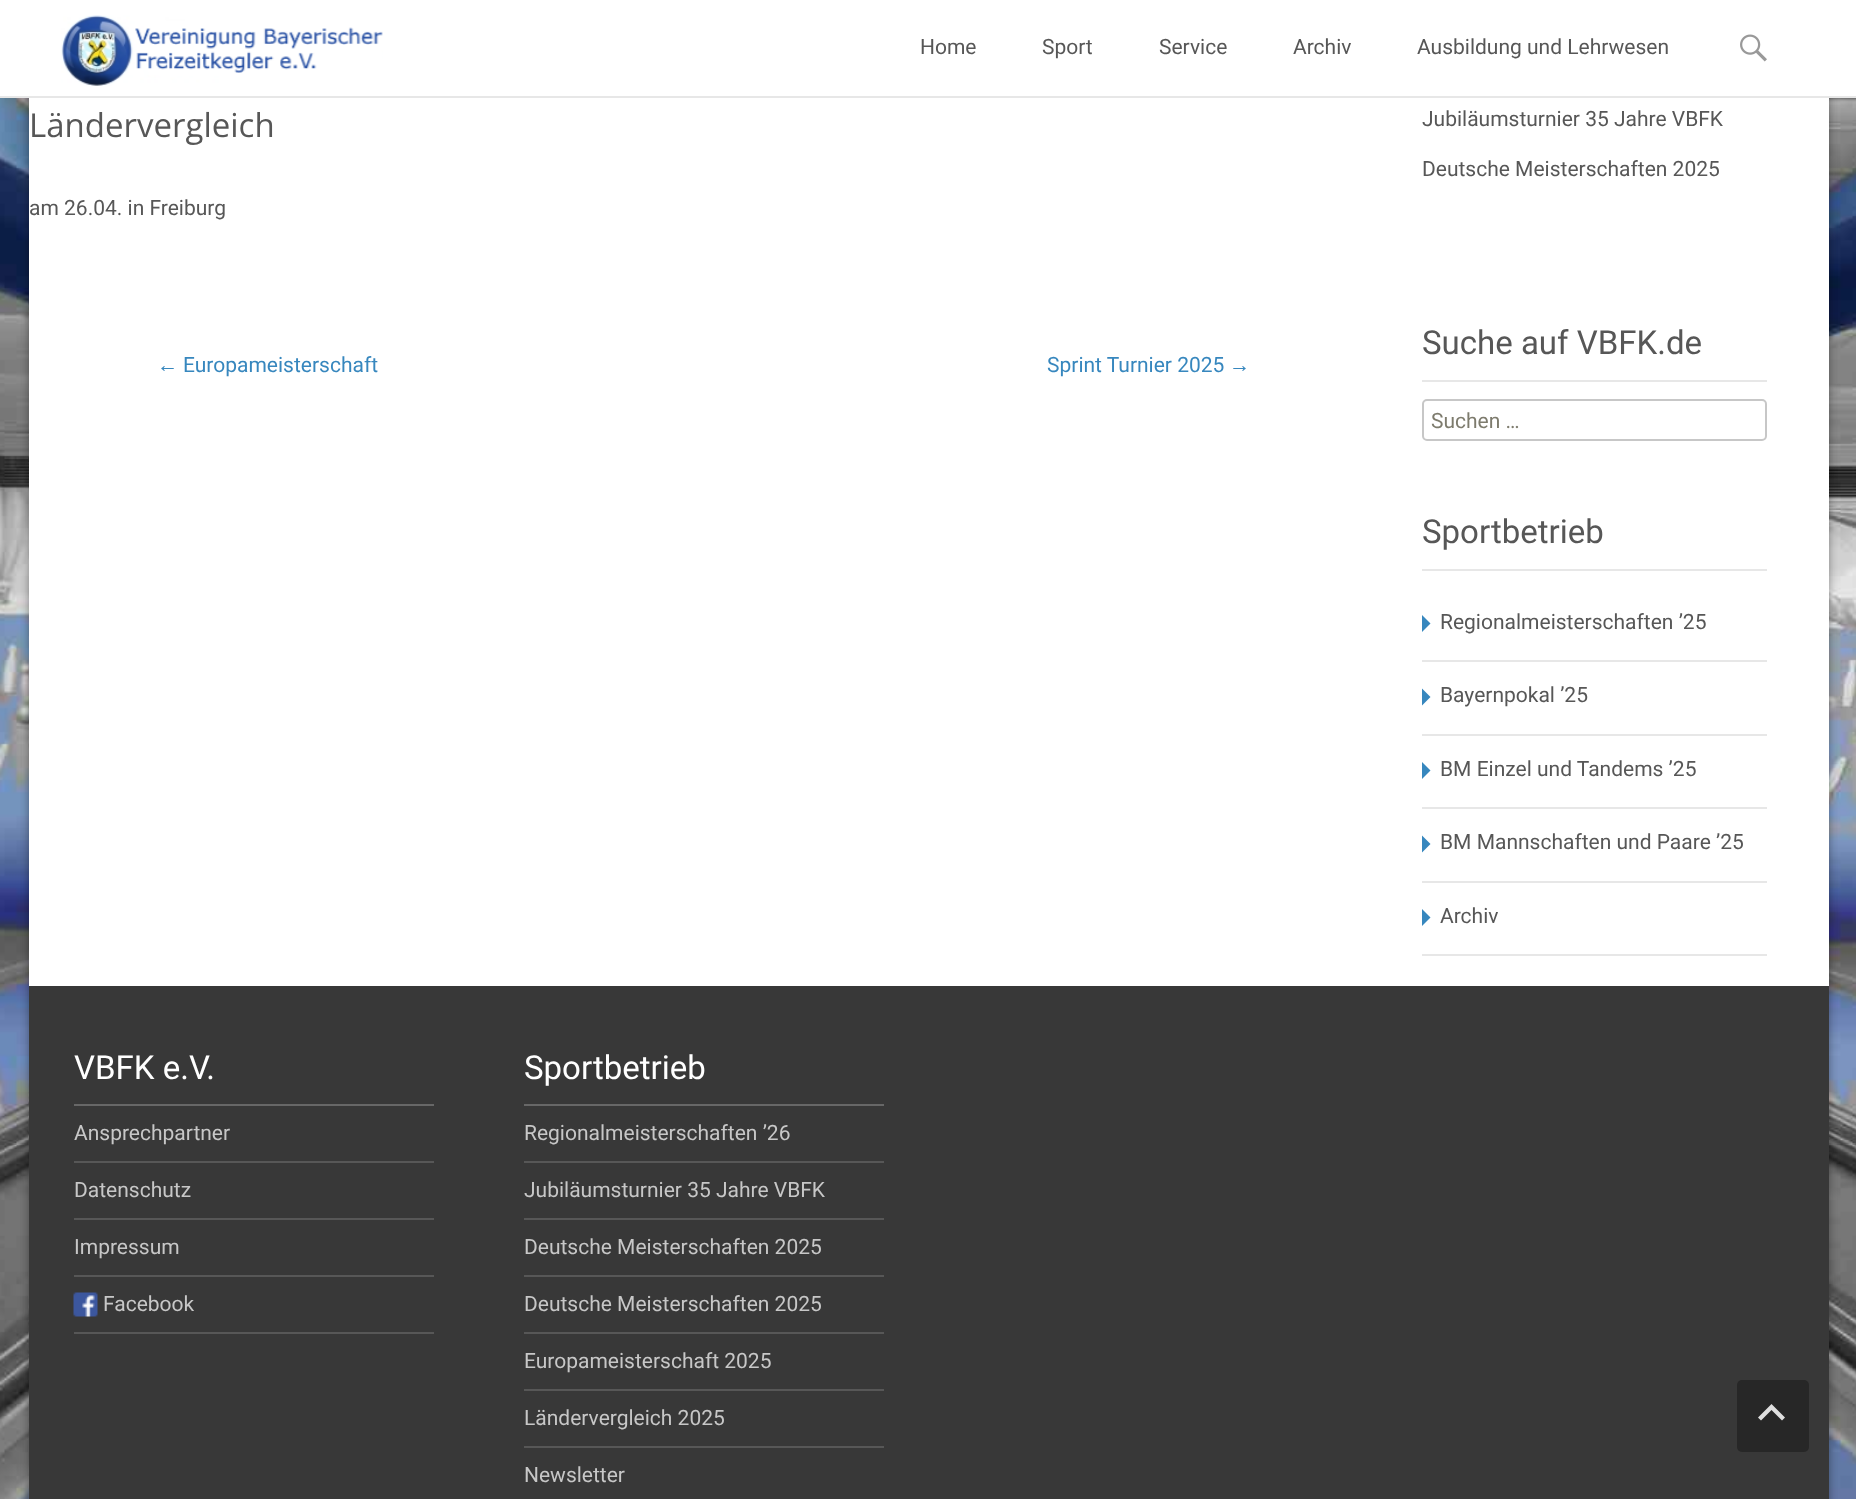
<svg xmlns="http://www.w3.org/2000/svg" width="1856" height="1499">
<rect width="100%" height="100%" fill="#fff"/>
<image x="0" y="98" width="1856" height="1401" href="media/1.png"/>
<rect x="29" y="-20" width="1800" height="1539" rx="6" fill="#00000033" filter="blur(4.5px)"/>
<rect x="29" y="-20" width="1800" height="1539" rx="6" fill="#00000033" filter="blur(4.5px)"/>
<rect x="29" y="98" width="1800" height="888" fill="#fff"/>
<rect x="20" width="1818" height="96" fill="#fff"/>
<rect y="96" width="1856" height="2" fill="#e7e7e7"/>
<image x="61" y="15" width="322" height="71" href="media/2.png"/>
<text x="920" y="54" style="font-family:Roboto;font-size:21px;fill:#575757">Home</text>
<text x="1042" y="54" style="font-family:Roboto;font-size:21px;fill:#575757">Sport</text>
<text x="1159" y="54" style="font-family:Roboto;font-size:21px;fill:#575757">Service</text>
<text x="1293" y="54" style="font-family:Roboto;font-size:21px;fill:#575757">Archiv</text>
<text x="1417" y="54" style="font-family:Roboto;font-size:21px;fill:#575757">Ausbildung und Lehrwesen</text>
<image x="1740" y="34" width="27" height="28" href="media/3.png"/>
<text x="29" y="137" style="font-family:Open Sans;font-size:33px;fill:#575757">Ländervergleich</text>
<text x="29" y="215" style="font-family:Roboto;font-size:21px;fill:#575757">am 26.04. in Freiburg</text>
<text x="157" y="372" style="font-family:Liberation Sans;font-size:21px;fill:#3787be">←</text>
<text x="183" y="372" style="font-family:Roboto;font-size:21px;fill:#3787be">Europameisterschaft</text>
<text x="1047" y="372" style="font-family:Roboto;font-size:21px;fill:#3787be">Sprint Turnier 2025</text>
<text x="1229" y="372" style="font-family:Liberation Sans;font-size:21px;fill:#3787be">→</text>
<text x="1422" y="126" style="font-family:Roboto;font-size:21px;fill:#575757">Jubiläumsturnier 35 Jahre VBFK</text>
<text x="1422" y="176" style="font-family:Roboto;font-size:21px;fill:#575757">Deutsche Meisterschaften 2025</text>
<rect x="1422" y="380" width="345" height="2" fill="#e7e7e7"/>
<text x="1422" y="354" style="font-family:Roboto;font-size:33px;fill:#575757">Suche auf VBFK.de</text>
<rect x="1423" y="400" width="343" height="40" rx="4" fill="none" stroke="#c7c7c7" stroke-width="2"/>
<text x="1431" y="428" style="font-family:Roboto;font-size:21px;fill:#7d7b6d">Suchen …</text>
<rect x="1422" y="569" width="345" height="2" fill="#e7e7e7"/>
<text x="1422" y="543" style="font-family:Roboto;font-size:33px;fill:#575757">Sportbetrieb</text>
<rect x="1422" y="660" width="345" height="2" fill="#e7e7e7"/>
<path d="M1422 632l8.5-8.5l-8.5-8.5z" fill="#3787be"/>
<text x="1440" y="629" style="font-family:Roboto;font-size:21px;fill:#575757">Regionalmeisterschaften ’25</text>
<rect x="1422" y="734" width="345" height="2" fill="#e7e7e7"/>
<path d="M1422 705.5l8.5-8.5l-8.5-8.5z" fill="#3787be"/>
<text x="1440" y="702" style="font-family:Roboto;font-size:21px;fill:#575757">Bayernpokal ’25</text>
<rect x="1422" y="807" width="345" height="2" fill="#e7e7e7"/>
<path d="M1422 779l8.5-8.5l-8.5-8.5z" fill="#3787be"/>
<text x="1440" y="776" style="font-family:Roboto;font-size:21px;fill:#575757">BM Einzel und Tandems ’25</text>
<rect x="1422" y="881" width="345" height="2" fill="#e7e7e7"/>
<path d="M1422 852.5l8.5-8.5l-8.5-8.5z" fill="#3787be"/>
<text x="1440" y="849" style="font-family:Roboto;font-size:21px;fill:#575757">BM Mannschaften und Paare ’25</text>
<rect x="1422" y="954" width="345" height="2" fill="#e7e7e7"/>
<path d="M1422 926l8.5-8.5l-8.5-8.5z" fill="#3787be"/>
<text x="1440" y="923" style="font-family:Roboto;font-size:21px;fill:#575757">Archiv</text>
<rect x="29" y="986" width="1800" height="513" fill="#383838"/>
<rect x="74" y="1104" width="360" height="2" fill="#676767"/>
<text x="74" y="1079" style="font-family:Roboto;font-size:33px;fill:#fff">VBFK e.V.</text>
<rect x="74" y="1161" width="360" height="2" fill="#575757"/>
<text x="74" y="1140" style="font-family:Roboto;font-size:21px;fill:#c7c7c7">Ansprechpartner</text>
<rect x="74" y="1218" width="360" height="2" fill="#575757"/>
<text x="74" y="1197" style="font-family:Roboto;font-size:21px;fill:#c7c7c7">Datenschutz</text>
<rect x="74" y="1275" width="360" height="2" fill="#575757"/>
<text x="74" y="1254" style="font-family:Roboto;font-size:21px;fill:#c7c7c7">Impressum</text>
<rect x="74" y="1332" width="360" height="2" fill="#575757"/>
<image x="73" y="1292" width="25" height="25" href="media/4.png"/>
<text x="103" y="1311" style="font-family:Roboto;font-size:21px;fill:#c7c7c7">Facebook</text>
<rect x="524" y="1104" width="360" height="2" fill="#676767"/>
<text x="524" y="1079" style="font-family:Roboto;font-size:33px;fill:#fff">Sportbetrieb</text>
<rect x="524" y="1161" width="360" height="2" fill="#575757"/>
<text x="524" y="1140" style="font-family:Roboto;font-size:21px;fill:#c7c7c7">Regionalmeisterschaften ’26</text>
<rect x="524" y="1218" width="360" height="2" fill="#575757"/>
<text x="524" y="1197" style="font-family:Roboto;font-size:21px;fill:#c7c7c7">Jubiläumsturnier 35 Jahre VBFK</text>
<rect x="524" y="1275" width="360" height="2" fill="#575757"/>
<text x="524" y="1254" style="font-family:Roboto;font-size:21px;fill:#c7c7c7">Deutsche Meisterschaften 2025</text>
<rect x="524" y="1332" width="360" height="2" fill="#575757"/>
<text x="524" y="1311" style="font-family:Roboto;font-size:21px;fill:#c7c7c7">Deutsche Meisterschaften 2025</text>
<rect x="524" y="1389" width="360" height="2" fill="#575757"/>
<text x="524" y="1368" style="font-family:Roboto;font-size:21px;fill:#c7c7c7">Europameisterschaft 2025</text>
<rect x="524" y="1446" width="360" height="2" fill="#575757"/>
<text x="524" y="1425" style="font-family:Roboto;font-size:21px;fill:#c7c7c7">Ländervergleich 2025</text>
<text x="524" y="1482" style="font-family:Roboto;font-size:21px;fill:#c7c7c7">Newsletter</text>
<rect x="1737" y="1380" width="72" height="72" rx="5" fill="#272727"/>
<path d="M1758 1417.5l13.5-13.5l13.5 13.5l-3 3l-10.5-10.5l-10.5 10.5z" fill="#dfdfdf"/>
</svg>
